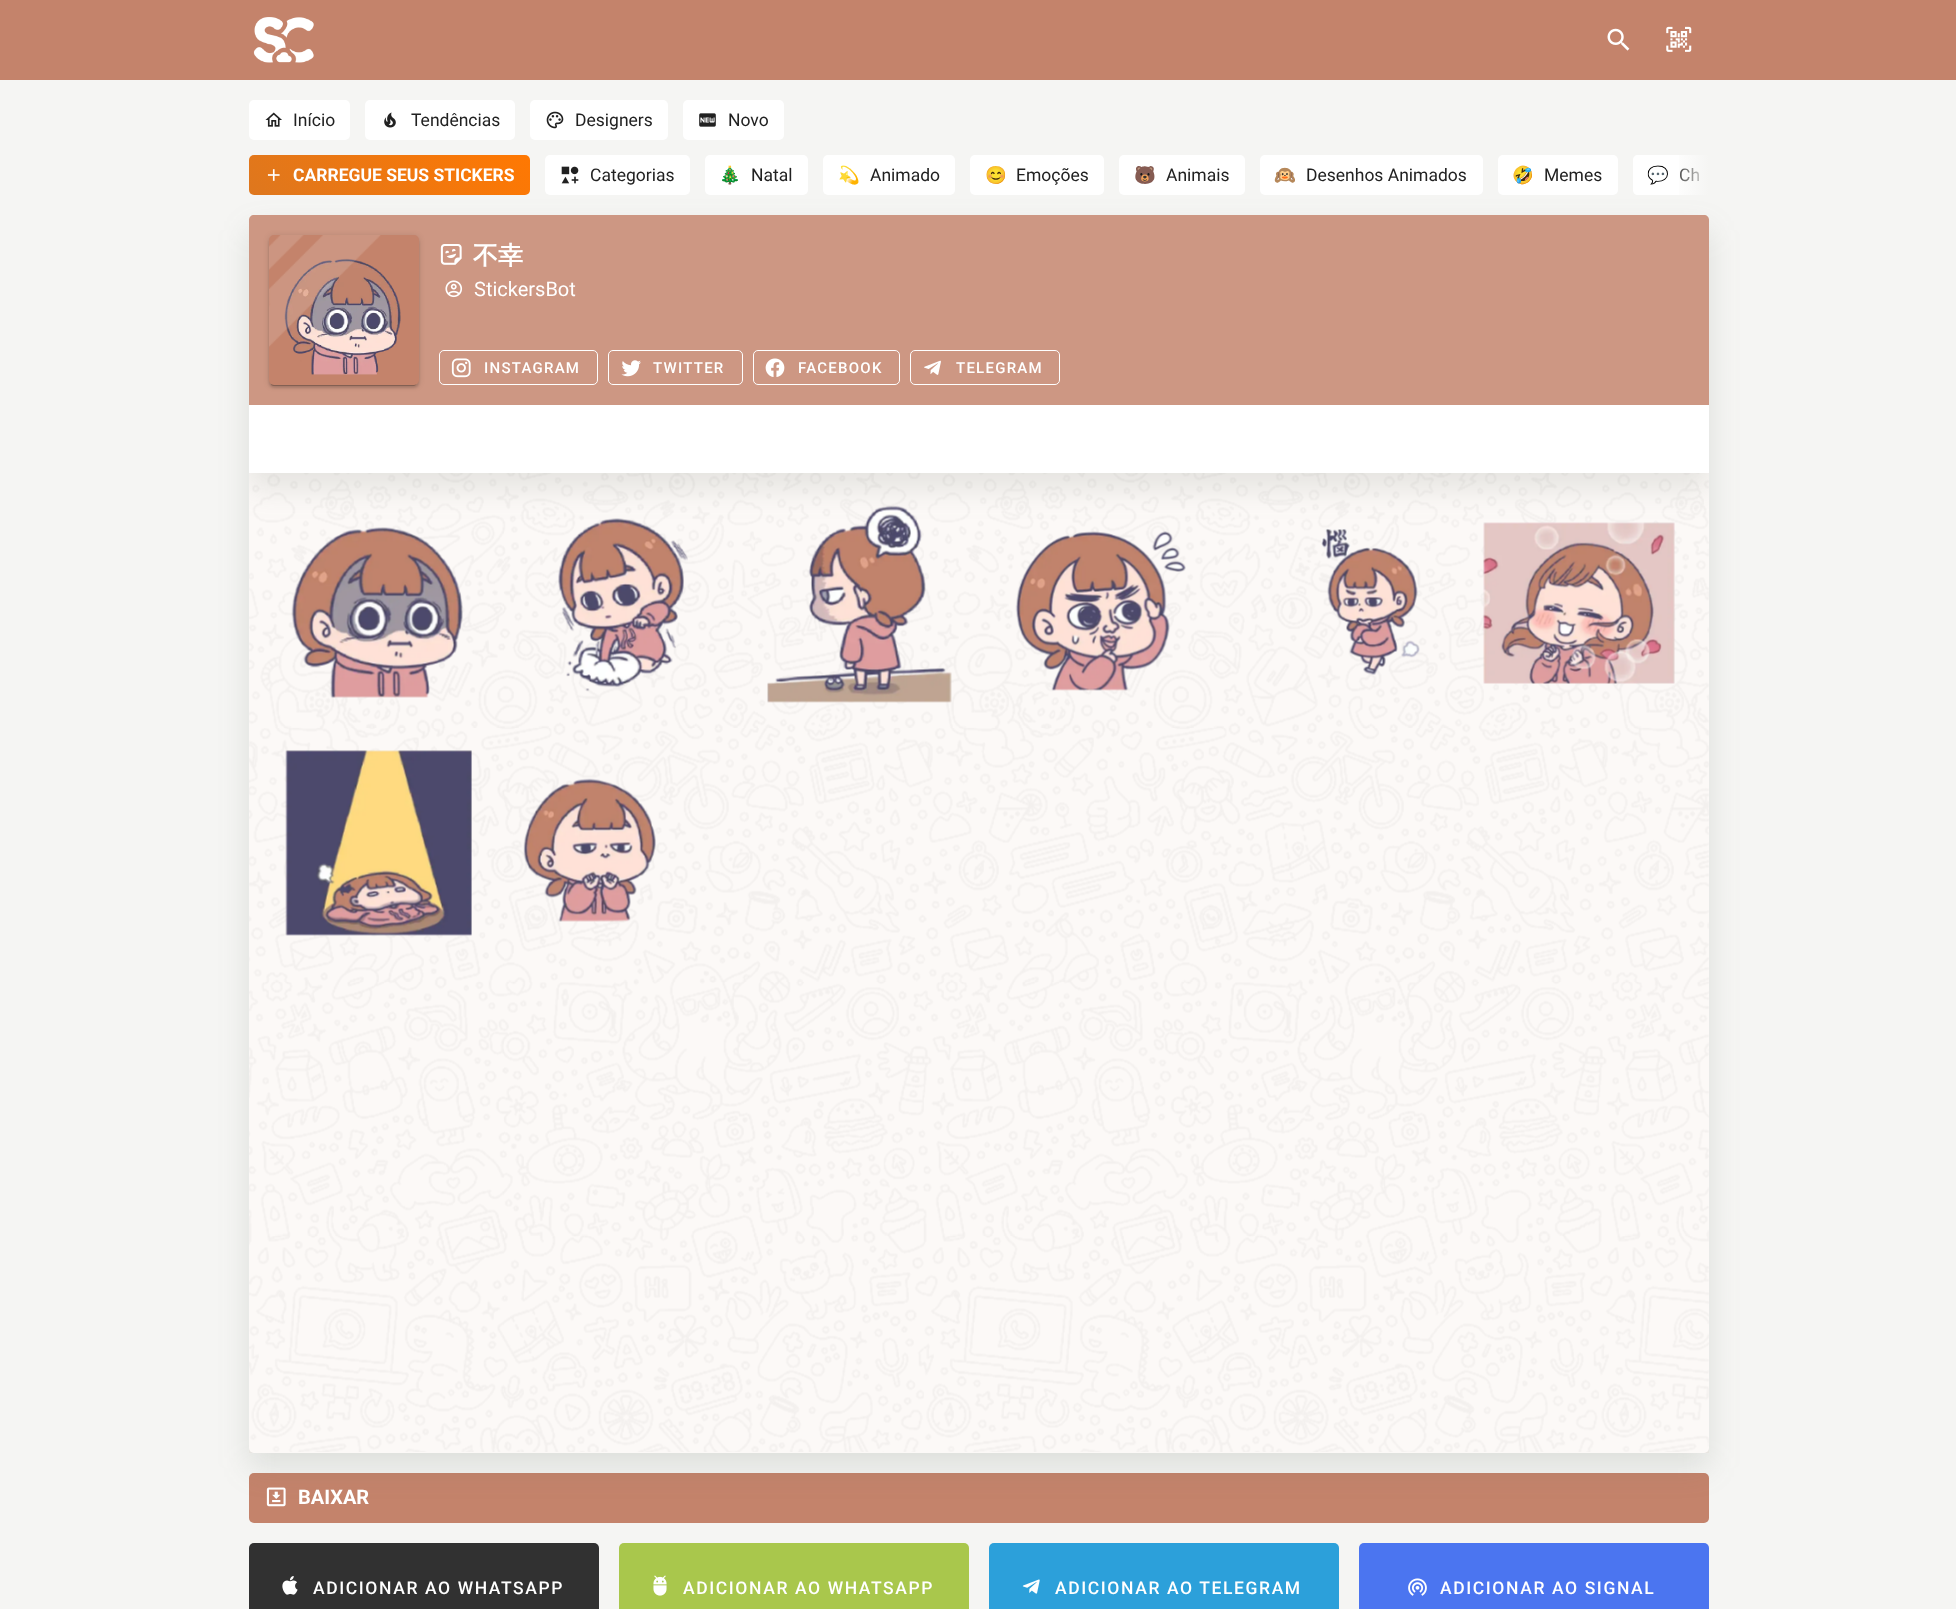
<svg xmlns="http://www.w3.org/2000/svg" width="1956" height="1609">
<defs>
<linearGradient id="g1" gradientUnits="userSpaceOnUse" x1="1671" y1="175" x2="1709" y2="175"><stop offset="0" stop-color="#f5f5f3" stop-opacity="0"/><stop offset="1" stop-color="#f5f5f3"/></linearGradient>
<linearGradient id="g2" gradientUnits="userSpaceOnUse" x1="309" y1="255" x2="470" y2="95"><stop offset="0" stop-color="#de771e"/><stop offset="1" stop-color="#ff7802"/></linearGradient>
<clipPath id="clip1"><rect x="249" y="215" width="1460" height="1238" rx="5"/></clipPath>
<clipPath id="clip2"><path d="M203 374h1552v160h-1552zm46 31h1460v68h-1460z" clip-rule="evenodd"/></clipPath>
</defs>
<rect width="100%" height="100%" fill="#f5f5f3"/>
<rect width="1956" height="80" fill="#c4836b"/>
<image x="253" y="17" width="61" height="46" href="media/1.png"/>
<image x="1607" y="28" width="23" height="23" href="media/2.png"/>
<image x="1666" y="26" width="26" height="26" href="media/3.png"/>
<rect x="249" y="100" width="101" height="40" rx="5" fill="#fff"/>
<image x="265" y="112" width="17" height="15" href="media/4.png"/>
<text x="293" y="126" style="font-family:Roboto;font-size:17.5px;fill:#212121">Início</text>
<rect x="365" y="100" width="150" height="40" rx="5" fill="#fff"/>
<image x="384" y="112" width="12" height="16" href="media/5.png"/>
<text x="411" y="126" style="font-family:Roboto;font-size:17.5px;fill:#212121">Tendências</text>
<rect x="530" y="100" width="138" height="40" rx="5" fill="#fff"/>
<image x="546" y="111" width="18" height="18" href="media/6.png"/>
<text x="575" y="126" style="font-family:Roboto;font-size:17.5px;fill:#212121">Designers</text>
<rect x="683" y="100" width="101" height="40" rx="5" fill="#fff"/>
<image x="699" y="113" width="17" height="14" href="media/7.png"/>
<text x="728" y="126" style="font-family:Roboto;font-size:17.5px;fill:#212121">Novo</text>
<rect x="249" y="1473" width="1460" height="50" rx="5" fill="#c4836b"/>
<rect x="249" y="230" width="1460" height="1238" rx="5" fill="#666e6229" filter="blur(15px)"/>
<path d="M1638 155h71v40h-71c-3 0-5-2-5-5v-30c0-3 2-5 5-5z" fill="#fff"/>
<text x="1679" y="181" style="font-family:Roboto;font-size:17.5px;fill:#212121">Ch</text>
<rect x="1679" y="155" width="30" height="40" fill="url(#g1)"/>
<rect x="249" y="155" width="281" height="40" rx="5" fill="url(#g2)"/>
<image x="267" y="169" width="13" height="12" href="media/8.png"/>
<text x="293" y="181" style="font-family:Roboto;font-size:17.5px;font-weight:bold;fill:#fff">CARREGUE SEUS STICKERS</text>
<rect x="545" y="155" width="145" height="40" rx="5" fill="#fff"/>
<image x="561" y="166" width="18" height="18" href="media/9.png"/>
<text x="590" y="181" style="font-family:Roboto;font-size:17.5px;fill:#212121">Categorias</text>
<rect x="705" y="155" width="103" height="40" rx="5" fill="#fff"/>
<text x="719" y="181" style="font-family:Noto Color Emoji;font-size:17.5px;fill:#212121">🎄</text>
<text x="751" y="181" style="font-family:Roboto;font-size:17.5px;fill:#212121">Natal</text>
<rect x="823" y="155" width="132" height="40" rx="5" fill="#fff"/>
<text x="838" y="181" style="font-family:Noto Color Emoji;font-size:17.5px;fill:#212121">💫</text>
<text x="870" y="181" style="font-family:Roboto;font-size:17.5px;fill:#212121">Animado</text>
<rect x="970" y="155" width="134" height="40" rx="5" fill="#fff"/>
<text x="985" y="181" style="font-family:Noto Color Emoji;font-size:17.5px;fill:#212121">😊</text>
<text x="1016" y="181" style="font-family:Roboto;font-size:17.5px;fill:#212121">Emoções</text>
<rect x="1119" y="155" width="126" height="40" rx="5" fill="#fff"/>
<text x="1134" y="181" style="font-family:Noto Color Emoji;font-size:17.5px;fill:#212121">🐻</text>
<text x="1166" y="181" style="font-family:Roboto;font-size:17.5px;fill:#212121">Animais</text>
<rect x="1260" y="155" width="223" height="40" rx="5" fill="#fff"/>
<text x="1274" y="181" style="font-family:Noto Color Emoji;font-size:17.5px;fill:#212121">🙉</text>
<text x="1306" y="181" style="font-family:Roboto;font-size:17.5px;fill:#212121">Desenhos Animados</text>
<rect x="1498" y="155" width="120" height="40" rx="5" fill="#fff"/>
<text x="1512" y="181" style="font-family:Noto Color Emoji;font-size:17.5px;fill:#212121">🤣</text>
<text x="1544" y="181" style="font-family:Roboto;font-size:17.5px;fill:#212121">Memes</text>
<text x="1647" y="181" style="font-family:Noto Color Emoji;font-size:17.5px;fill:#212121">💬</text>
<rect x="249" y="215" width="1460" height="1238" rx="5" fill="#fff"/>
<g clip-path="url(#clip1)">
<g clip-path="url(#clip2)">
<rect x="249" y="420" width="1460" height="68" fill="#666e6229" filter="blur(15px)"/>
</g>
</g>
<path d="M254 215h1450c3 0 5 2 5 5v185h-1460v-185c0-3 2-5 5-5z" fill="#c4836bd6"/>
<rect x="269" y="236" width="150" height="150" rx="5" fill="#0000001f" filter="blur(3px)"/>
<rect x="269" y="238" width="150" height="150" rx="5" fill="#00000024" filter="blur(1px)"/>
<rect x="271" y="241" width="145" height="145" rx="2.5" fill="#00000033" filter="blur(0.5px)"/>
<rect x="269" y="235" width="150" height="150" rx="5" fill="#c4836b"/>
<image x="284" y="258" width="117" height="117" href="media/11.png"/>
<image x="269" y="235" width="112" height="112" href="media/10.png"/>
<image x="440" y="244" width="22" height="21" href="media/12.png"/>
<text x="473" y="264" style="font-family:WenQuanYi Zen Hei;font-size:25px;font-weight:bold;fill:#fff">不幸</text>
<image x="445" y="280" width="18" height="18" href="media/13.png"/>
<text x="474" y="296" style="font-family:Roboto;font-size:20px;fill:#fff">StickersBot</text>
<rect x="439.5" y="350.5" width="158" height="34" rx="4.5" fill="none" stroke="#fff"/>
<image x="451" y="358" width="20" height="20" href="media/14.png"/>
<text x="484" y="373" style="font-family:Roboto;font-size:15px;font-weight:500;letter-spacing:1.25px;fill:#fff">INSTAGRAM</text>
<rect x="608.5" y="350.5" width="134" height="34" rx="4.5" fill="none" stroke="#fff"/>
<image x="621" y="360" width="20" height="17" href="media/15.png"/>
<text x="653" y="373" style="font-family:Roboto;font-size:15px;font-weight:500;letter-spacing:1.25px;fill:#fff">TWITTER</text>
<rect x="753.5" y="350.5" width="146" height="34" rx="4.5" fill="none" stroke="#fff"/>
<image x="765" y="358" width="20" height="19" href="media/16.png"/>
<text x="798" y="373" style="font-family:Roboto;font-size:15px;font-weight:500;letter-spacing:1.25px;fill:#fff">FACEBOOK</text>
<rect x="910.5" y="350.5" width="149" height="34" rx="4.5" fill="none" stroke="#fff"/>
<image x="924" y="360" width="17" height="15" href="media/17.png"/>
<text x="956" y="373" style="font-family:Roboto;font-size:15px;font-weight:500;letter-spacing:1.25px;fill:#fff">TELEGRAM</text>
<rect x="249" y="473" width="1460" height="980" fill="#c4836b0d"/>
<image x="249" y="473" width="1460" height="979" href="media/18.png"/>
<image x="291" y="527" width="172" height="171" href="media/19.png"/>
<image x="558" y="518" width="130" height="174" href="media/20.png"/>
<image x="767" y="505" width="185" height="198" href="media/21.png"/>
<image x="1015" y="531" width="171" height="160" href="media/22.png"/>
<image x="1321" y="528" width="99" height="147" href="media/23.png"/>
<image x="1483" y="522" width="192" height="162" href="media/24.png"/>
<image x="285" y="750" width="187" height="186" href="media/25.png"/>
<image x="523" y="778" width="133" height="144" href="media/26.png"/>
<image x="266" y="1487" width="20" height="20" href="media/27.png"/>
<text x="298" y="1504" style="font-family:Roboto;font-size:20px;font-weight:bold;fill:#fff">BAIXAR</text>
<rect x="249" y="1543" width="350" height="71" rx="5" fill="#313131"/>
<image x="282" y="1576" width="16" height="19" href="media/28.png"/>
<text x="313" y="1594" style="font-family:Roboto;font-size:17.5px;font-weight:500;letter-spacing:1.6px;fill:#fff">ADICIONAR AO WHATSAPP</text>
<rect x="619" y="1543" width="350" height="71" rx="5" fill="#a9c74c"/>
<image x="653" y="1575" width="14" height="21" href="media/29.png"/>
<text x="683" y="1594" style="font-family:Roboto;font-size:17.5px;font-weight:500;letter-spacing:1.6px;fill:#fff">ADICIONAR AO WHATSAPP</text>
<rect x="989" y="1543" width="350" height="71" rx="5" fill="#2ca0da"/>
<image x="1022" y="1579" width="18" height="15" href="media/30.png"/>
<text x="1055" y="1594" style="font-family:Roboto;font-size:17.5px;font-weight:500;letter-spacing:1.6px;fill:#fff">ADICIONAR AO TELEGRAM</text>
<rect x="1359" y="1543" width="350" height="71" rx="5" fill="#4b75f0"/>
<image x="1408" y="1578" width="19" height="18" href="media/31.png"/>
<text x="1440" y="1594" style="font-family:Roboto;font-size:17.5px;font-weight:500;letter-spacing:1.6px;fill:#fff">ADICIONAR AO SIGNAL</text>
</svg>
